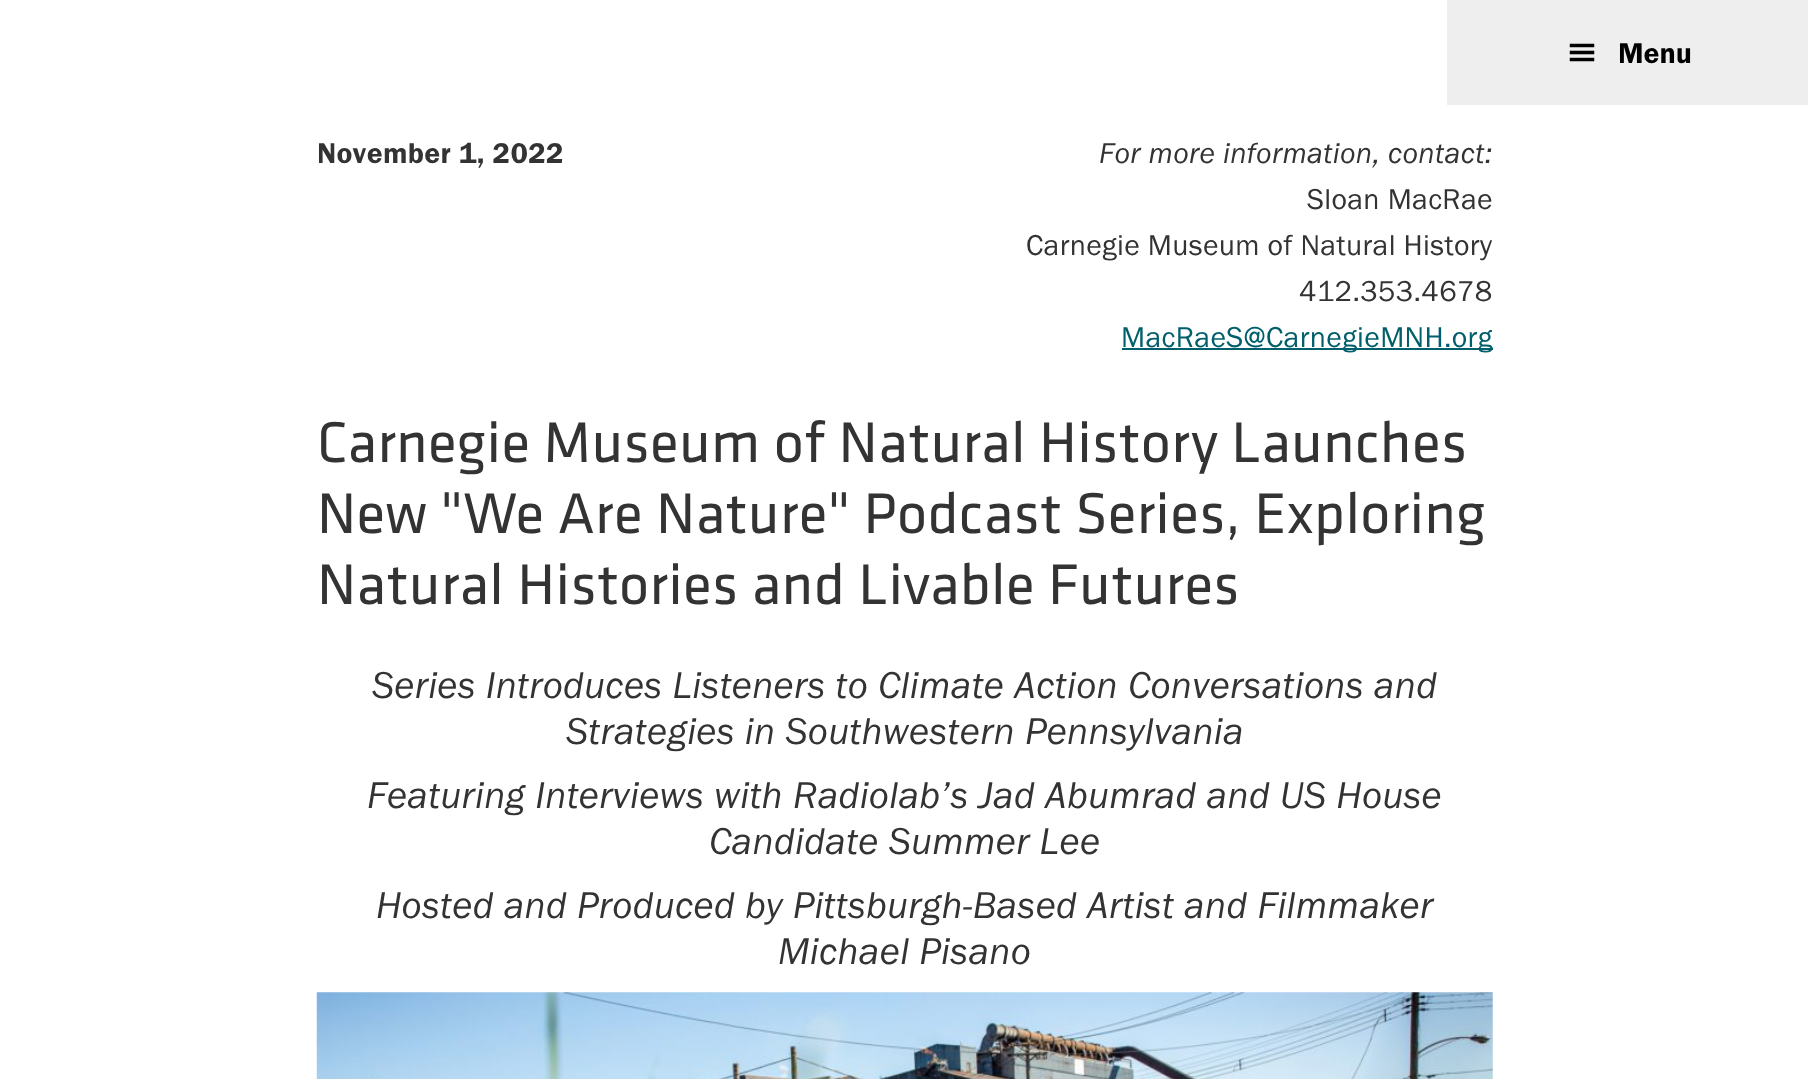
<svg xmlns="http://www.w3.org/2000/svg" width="1808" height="1079">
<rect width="100%" height="100%" fill="#fff"/>
<rect x="1447" width="361" height="105" fill="#eee"/>
<image x="1569" y="43" width="26" height="19" href="media/1.png"/>
<text x="1618" y="63" style="font-family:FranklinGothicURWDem;font-size:29.75px;fill:#000">Menu</text>
<text x="317" y="163" style="font-family:FranklinGothicURWDem;font-size:29.75px;letter-spacing:0.35px;fill:#333">November 1, 2022</text>
<text x="1099" y="163" style="font-family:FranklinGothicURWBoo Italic;font-size:29.75px;font-style:italic;letter-spacing:0.35px;fill:#333">For more information, contact:</text>
<text x="1307" y="209" style="font-family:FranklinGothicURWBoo;font-size:29.75px;letter-spacing:0.35px;fill:#333">Sloan MacRae</text>
<text x="1026" y="255" style="font-family:FranklinGothicURWBoo;font-size:29.75px;letter-spacing:0.35px;fill:#333">Carnegie Museum of Natural History</text>
<text x="1299" y="301" style="font-family:FranklinGothicURWBoo;font-size:29.75px;letter-spacing:0.35px;fill:#333">412.353.4678</text>
<rect x="1122" y="348" width="371" height="2" fill="#005f6b"/>
<text x="1121" y="347" style="font-family:FranklinGothicURWBoo;font-size:29.75px;letter-spacing:0.35px;fill:#005f6b">MacRaeS@CarnegieMNH.org</text>
<text x="317" y="462" style="font-family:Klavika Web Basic;font-size:59.5px;letter-spacing:0.35px;fill:#333">Carnegie Museum of Natural History Launches</text>
<text x="317" y="533" style="font-family:Klavika Web Basic;font-size:59.5px;letter-spacing:0.35px;fill:#333">New "We Are Nature" Podcast Series, Exploring</text>
<text x="317" y="604" style="font-family:Klavika Web Basic;font-size:59.5px;letter-spacing:0.35px;fill:#333">Natural Histories and Livable Futures</text>
<text x="372" y="698" style="font-family:FranklinGothicURWBoo Italic;font-size:38.5px;font-style:italic;letter-spacing:0.35px;fill:#333">Series Introduces Listeners to Climate Action Conversations and</text>
<text x="566" y="744" style="font-family:FranklinGothicURWBoo Italic;font-size:38.5px;font-style:italic;letter-spacing:0.35px;fill:#333">Strategies in Southwestern Pennsylvania</text>
<text x="367" y="808" style="font-family:FranklinGothicURWBoo Italic;font-size:38.5px;font-style:italic;letter-spacing:0.35px;fill:#333">Featuring Interviews with Radiolab’s Jad Abumrad and US House</text>
<text x="709" y="854" style="font-family:FranklinGothicURWBoo Italic;font-size:38.5px;font-style:italic;letter-spacing:0.35px;fill:#333">Candidate Summer Lee</text>
<text x="376" y="918" style="font-family:FranklinGothicURWBoo Italic;font-size:38.5px;font-style:italic;letter-spacing:0.35px;fill:#333">Hosted and Produced by Pittsburgh-Based Artist and Filmmaker</text>
<text x="778" y="964" style="font-family:FranklinGothicURWBoo Italic;font-size:38.5px;font-style:italic;letter-spacing:0.35px;fill:#333">Michael Pisano</text>
<image x="316" y="992" width="1177" height="87" href="media/2.png"/>
</svg>
